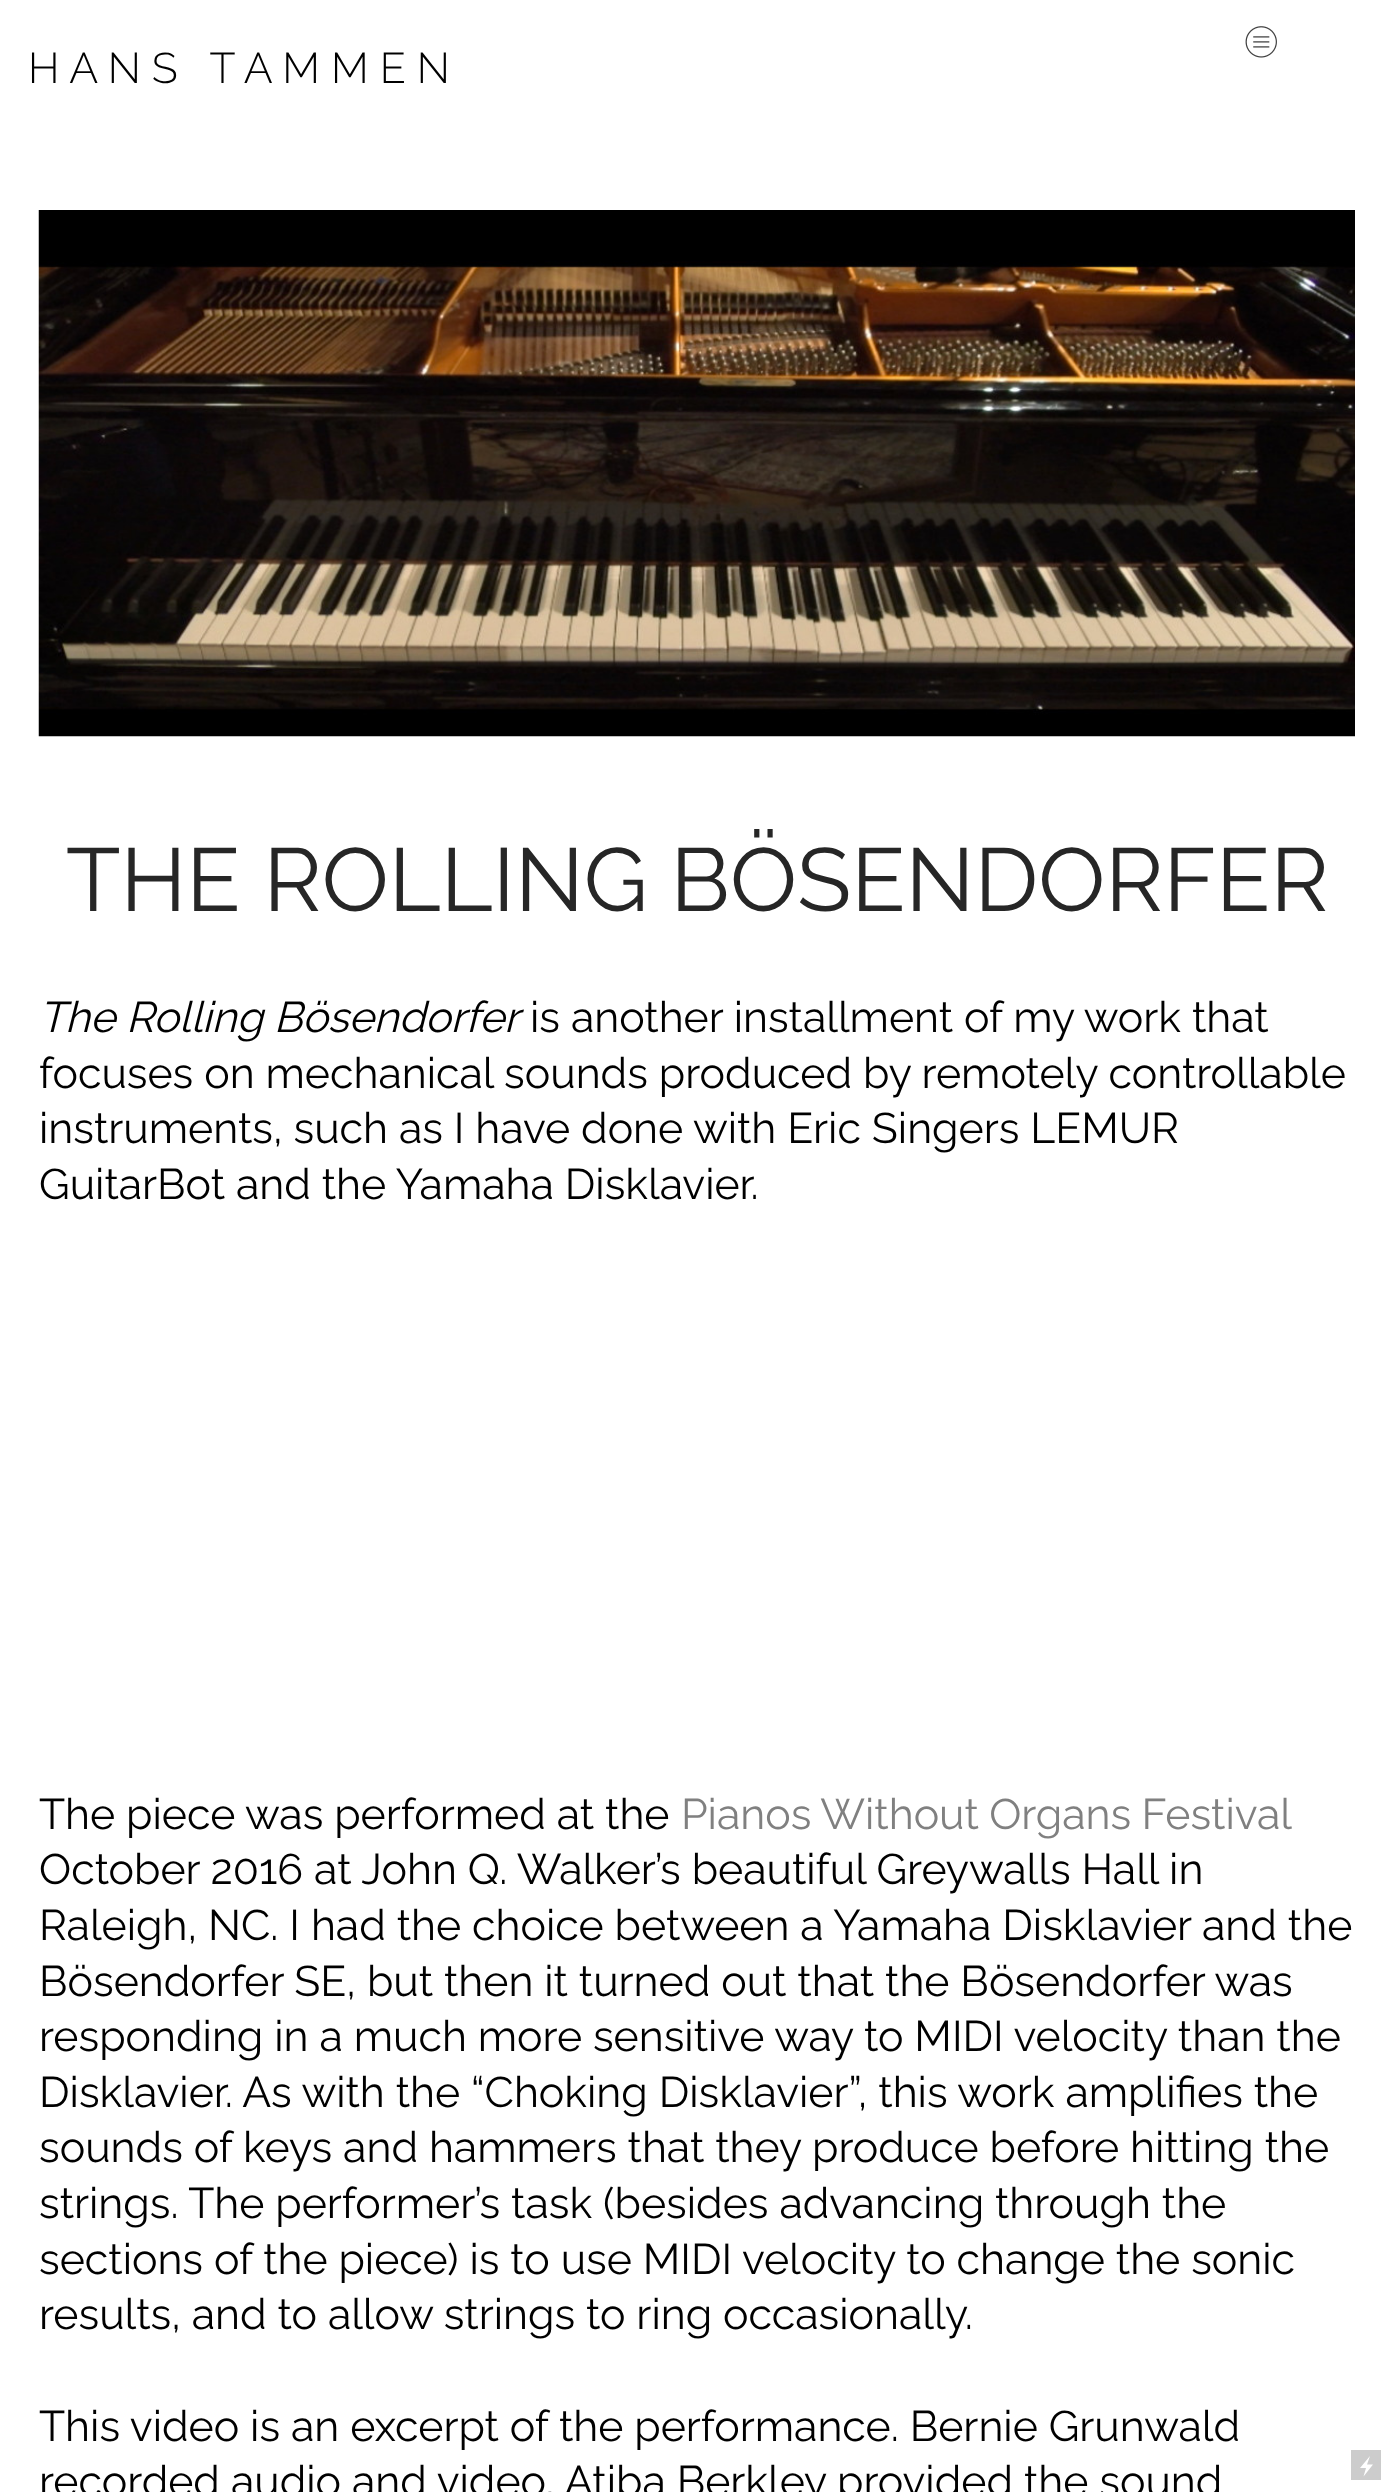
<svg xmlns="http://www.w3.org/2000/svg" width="1393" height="2492">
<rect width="100%" height="100%" fill="#fff"/>
<image x="1245" y="26" width="32" height="32" href="media/1.png"/>
<text x="28" y="83" style="font-family:Raleway;font-size:42.8px;font-weight:300;fill:#000" xml:space="preserve">H A N S   T A M M E N</text>
<image x="38" y="210" width="1317" height="527" href="media/2.png"/>
<text x="66" y="911" style="font-family:Raleway;font-size:89.25px;fill:#262626">THE ROLLING BÖSENDORFER</text>
<text x="39" y="1032" style="font-family:Raleway;font-size:42.8px;font-style:italic;fill:#000">The Rolling Bösendorfer</text>
<text x="530" y="1032" style="font-family:Raleway;font-size:42.8px;fill:#000">is another installment of my work that</text>
<text x="39" y="1088" style="font-family:Raleway;font-size:42.8px;fill:#000">focuses on mechanical sounds produced by remotely controllable</text>
<text x="39" y="1143" style="font-family:Raleway;font-size:42.8px;fill:#000">instruments, such as I have done with Eric Singers LEMUR</text>
<text x="39" y="1199" style="font-family:Raleway;font-size:42.8px;fill:#000">GuitarBot and the Yamaha Disklavier.</text>
<text x="39" y="1829" style="font-family:Raleway;font-size:42.8px;fill:#000">The piece was performed at the</text>
<text x="681" y="1829" word-spacing="-0.5" style="font-family:Raleway;font-size:42.8px;fill:#808080">Pianos Without Organs Festival</text>
<text x="39" y="1884" style="font-family:Raleway;font-size:42.8px;fill:#000">October 2016 at John Q. Walker’s beautiful Greywalls Hall in</text>
<text x="39" y="1940" style="font-family:Raleway;font-size:42.8px;fill:#000">Raleigh, NC. I had the choice between a Yamaha Disklavier and the</text>
<text x="39" y="1996" style="font-family:Raleway;font-size:42.8px;fill:#000">Bösendorfer SE, but then it turned out that the Bösendorfer was</text>
<text x="39" y="2051" style="font-family:Raleway;font-size:42.8px;fill:#000">responding in a much more sensitive way to MIDI velocity than the</text>
<text x="39" y="2107" style="font-family:Raleway;font-size:42.8px;fill:#000">Disklavier. As with the “Choking Disklavier”, this work amplifies the</text>
<text x="39" y="2162" style="font-family:Raleway;font-size:42.8px;fill:#000">sounds of keys and hammers that they produce before hitting the</text>
<text x="39" y="2218" style="font-family:Raleway;font-size:42.8px;fill:#000">strings. The performer’s task (besides advancing through the</text>
<text x="39" y="2274" style="font-family:Raleway;font-size:42.8px;fill:#000">sections of the piece) is to use MIDI velocity to change the sonic</text>
<text x="39" y="2329" style="font-family:Raleway;font-size:42.8px;fill:#000">results, and to allow strings to ring occasionally.</text>
<text x="39" y="2441" style="font-family:Raleway;font-size:42.8px;fill:#000">This video is an excerpt of the performance. Bernie Grunwald</text>
<text x="39" y="2496" style="font-family:Raleway;font-size:42.8px;fill:#000">recorded audio and video, Atiba Berkley provided the sound</text>
<rect x="1351" y="2450" width="30" height="30" fill="#ccc"/>
<path d="M1373 2464.5h-6l3-8.5l-10 12h6l-2.5 8.5z" fill="#fff"/>
</svg>
